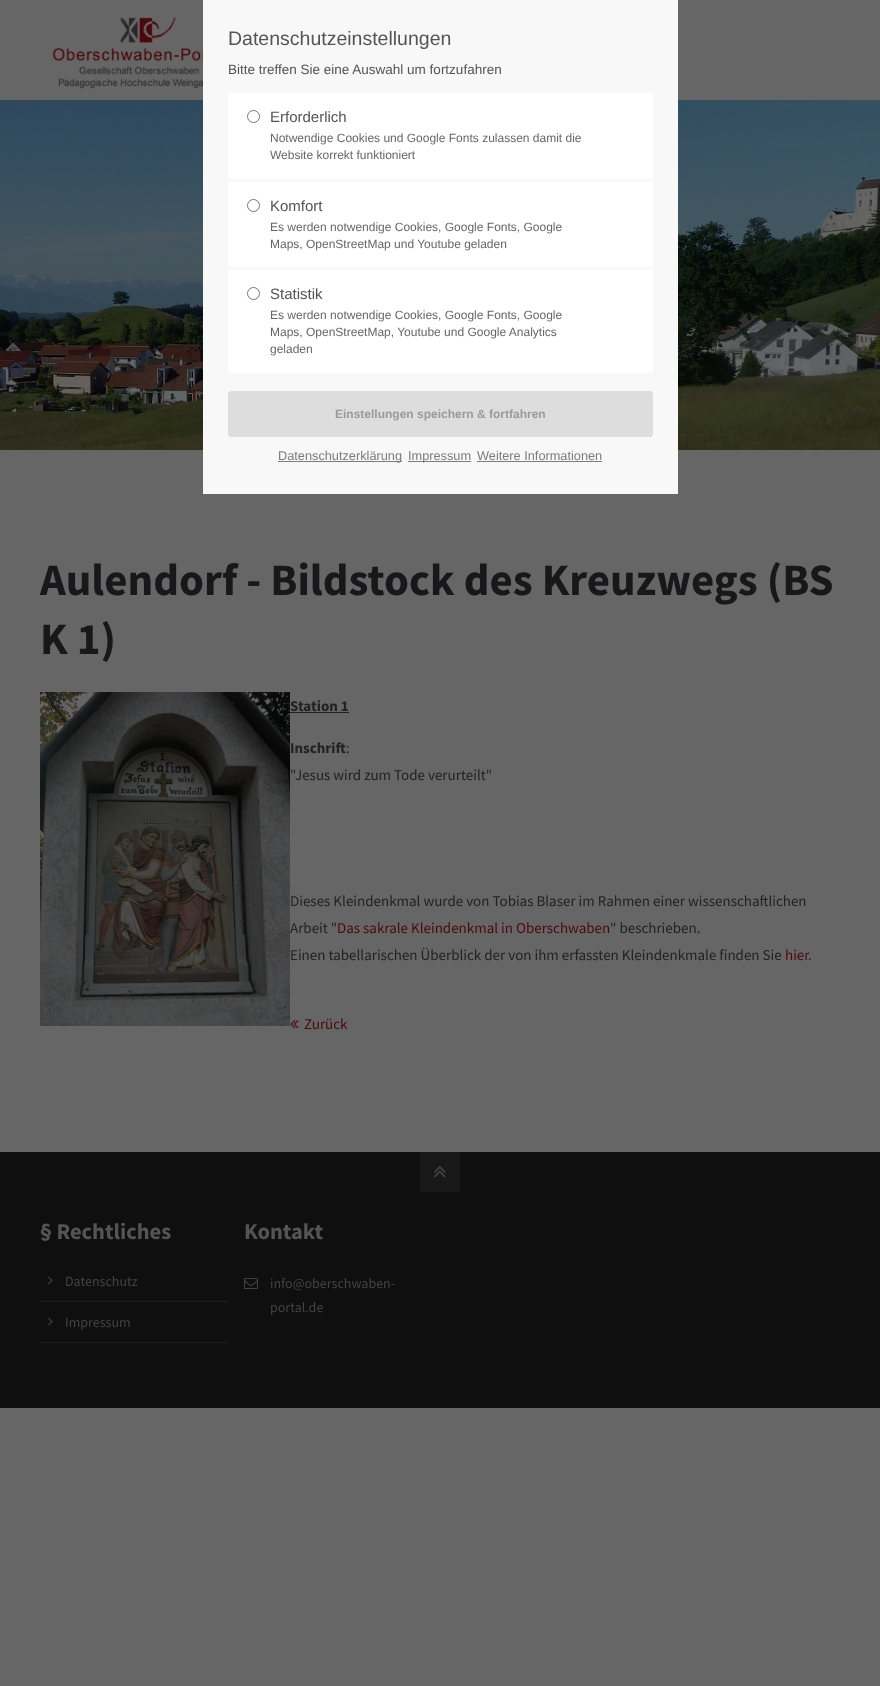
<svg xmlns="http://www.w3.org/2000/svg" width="880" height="1686">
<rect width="100%" height="100%" fill="#666"/>
<image x="0" y="100" width="880" height="350" href="media/2.png"/>
<rect x="203" width="475" height="494" fill="#f8f8f8"/>
<text x="228" y="45" style="font-family:Liberation Sans;font-size:19.5px;fill:#545454">Datenschutzeinstellungen</text>
<text x="228" y="74" style="font-family:Liberation Sans;font-size:13.5px;fill:#545454">Bitte treffen Sie eine Auswahl um fortzufahren</text>
<rect x="228" y="93" width="425" height="86" fill="#fff"/>
<circle cx="253.5" cy="116.5" r="6" fill="none" stroke="#767676"/>
<text x="270" y="122" style="font-family:Liberation Sans;font-size:15px;fill:#545454">Erforderlich</text>
<text x="270" y="142" style="font-family:Liberation Sans;font-size:12px;fill:#666">Notwendige Cookies und Google Fonts zulassen damit die</text>
<text x="270" y="159" style="font-family:Liberation Sans;font-size:12px;fill:#666">Website korrekt funktioniert</text>
<rect x="228" y="182" width="425" height="85" fill="#fff"/>
<circle cx="253.5" cy="205.5" r="6" fill="none" stroke="#767676"/>
<text x="270" y="211" style="font-family:Liberation Sans;font-size:15px;fill:#545454">Komfort</text>
<text x="270" y="231" style="font-family:Liberation Sans;font-size:12px;fill:#666">Es werden notwendige Cookies, Google Fonts, Google</text>
<text x="270" y="248" style="font-family:Liberation Sans;font-size:12px;fill:#666">Maps, OpenStreetMap und Youtube geladen</text>
<rect x="228" y="270" width="425" height="103" fill="#fff"/>
<circle cx="253.5" cy="293.5" r="6" fill="none" stroke="#767676"/>
<text x="270" y="299" style="font-family:Liberation Sans;font-size:15px;fill:#545454">Statistik</text>
<text x="270" y="319" style="font-family:Liberation Sans;font-size:12px;fill:#666">Es werden notwendige Cookies, Google Fonts, Google</text>
<text x="270" y="336" style="font-family:Liberation Sans;font-size:12px;fill:#666">Maps, OpenStreetMap, Youtube und Google Analytics</text>
<text x="270" y="353" style="font-family:Liberation Sans;font-size:12px;fill:#666">geladen</text>
<rect x="228.5" y="391.5" width="424" height="45" rx="2.5" fill="#ddd" stroke="#ddd"/>
<text x="335" y="418" style="font-family:Liberation Sans;font-size:12px;font-weight:bold;fill:#9a9a9a">Einstellungen speichern &amp; fortfahren</text>
<rect x="278" y="461" width="124" height="1" fill="#7c7c7c"/>
<text x="278" y="460" style="font-family:Liberation Sans;font-size:12.75px;fill:#7b7b7b">Datenschutzerklärung</text>
<rect x="408" y="461" width="63" height="1" fill="#7c7c7c"/>
<text x="408" y="460" style="font-family:Liberation Sans;font-size:12.75px;fill:#7b7b7b">Impressum</text>
<text x="477" y="460" style="font-family:Liberation Sans;font-size:12.75px;fill:#7b7b7b">Weitere Informationen</text>
<rect x="477" y="461" width="125" height="1" fill="#7c7c7c"/>
<image x="52" y="16" width="151" height="73" href="media/1.png"/>
<text x="40" y="595" style="font-family:Source Sans Pro;font-size:45px;font-weight:bold;fill:#18181a">Aulendorf - Bildstock des Kreuzwegs (BS</text>
<text x="40" y="654" style="font-family:Source Sans Pro;font-size:45px;font-weight:bold;fill:#18181a">K 1)</text>
<image x="40" y="692" width="250" height="334" href="media/3.png"/>
<text x="290" y="711" style="font-family:Source Sans Pro;font-size:15px;font-weight:bold;fill:#222">Station 1</text>
<rect x="290" y="712" width="59" height="1" fill="#222"/>
<text x="290" y="753" style="font-family:Source Sans Pro;font-size:15px;font-weight:bold;fill:#222">Inschrift</text>
<text x="346" y="753" style="font-family:Source Sans Pro;font-size:15px;fill:#222">:</text>
<text x="290" y="780" style="font-family:Source Sans Pro;font-size:15px;fill:#222">"Jesus wird zum Tode verurteilt"</text>
<text x="290" y="906" style="font-family:Source Sans Pro;font-size:15px;fill:#222">Dieses Kleindenkmal wurde von Tobias Blaser im Rahmen einer wissenschaftlichen</text>
<text x="290" y="933" style="font-family:Source Sans Pro;font-size:15px;fill:#222">Arbeit "</text>
<text x="337" y="933" style="font-family:Source Sans Pro;font-size:15px;fill:#4c090d">Das sakrale Kleindenkmal in Oberschwaben</text>
<text x="610" y="933" style="font-family:Source Sans Pro;font-size:15px;fill:#222">" beschrieben.</text>
<text x="290" y="960" style="font-family:Source Sans Pro;font-size:15px;fill:#222">Einen tabellarischen Überblick der von ihm erfassten Kleindenkmale finden Sie</text>
<text x="785" y="960" style="font-family:Source Sans Pro;font-size:15px;fill:#4c090d">hier</text>
<text x="808" y="960" style="font-family:Source Sans Pro;font-size:15px;fill:#222">.</text>
<image x="290" y="1020" width="9" height="9" href="media/4.png"/>
<text x="304" y="1029" style="font-family:Source Sans Pro;font-size:15px;fill:#4c090d">Zurück</text>
<rect y="1152" width="880" height="256" fill="#0f0f0f"/>
<path d="M420 1152h40v37c0 1.5-1.5 3-3 3h-34c-1.5 0-3-1.5-3-3z" fill="#181818"/>
<image x="434" y="1166" width="12" height="12" href="media/5.png"/>
<text x="40" y="1239" style="font-family:Source Sans Pro;font-size:22.5px;font-weight:bold;fill:#545454">§ Rechtliches</text>
<image x="48" y="1276" width="5" height="9" href="media/6.png"/>
<text x="65" y="1286" style="font-family:Source Sans Pro;font-size:14px;fill:#434343">Datenschutz</text>
<rect x="40" y="1301" width="188" height="1" fill="#202020"/>
<image x="48" y="1317" width="5" height="9" href="media/6.png"/>
<text x="65" y="1327" style="font-family:Source Sans Pro;font-size:14px;fill:#434343">Impressum</text>
<rect x="40" y="1342" width="188" height="1" fill="#202020"/>
<text x="244" y="1239" style="font-family:Source Sans Pro;font-size:22.5px;font-weight:bold;fill:#545454">Kontakt</text>
<image x="244" y="1278" width="14" height="11" href="media/7.png"/>
<text x="270" y="1288" style="font-family:Source Sans Pro;font-size:14px;fill:#434343">info@oberschwaben-</text>
<text x="270" y="1312" style="font-family:Source Sans Pro;font-size:14px;fill:#434343">portal.de</text>
</svg>
